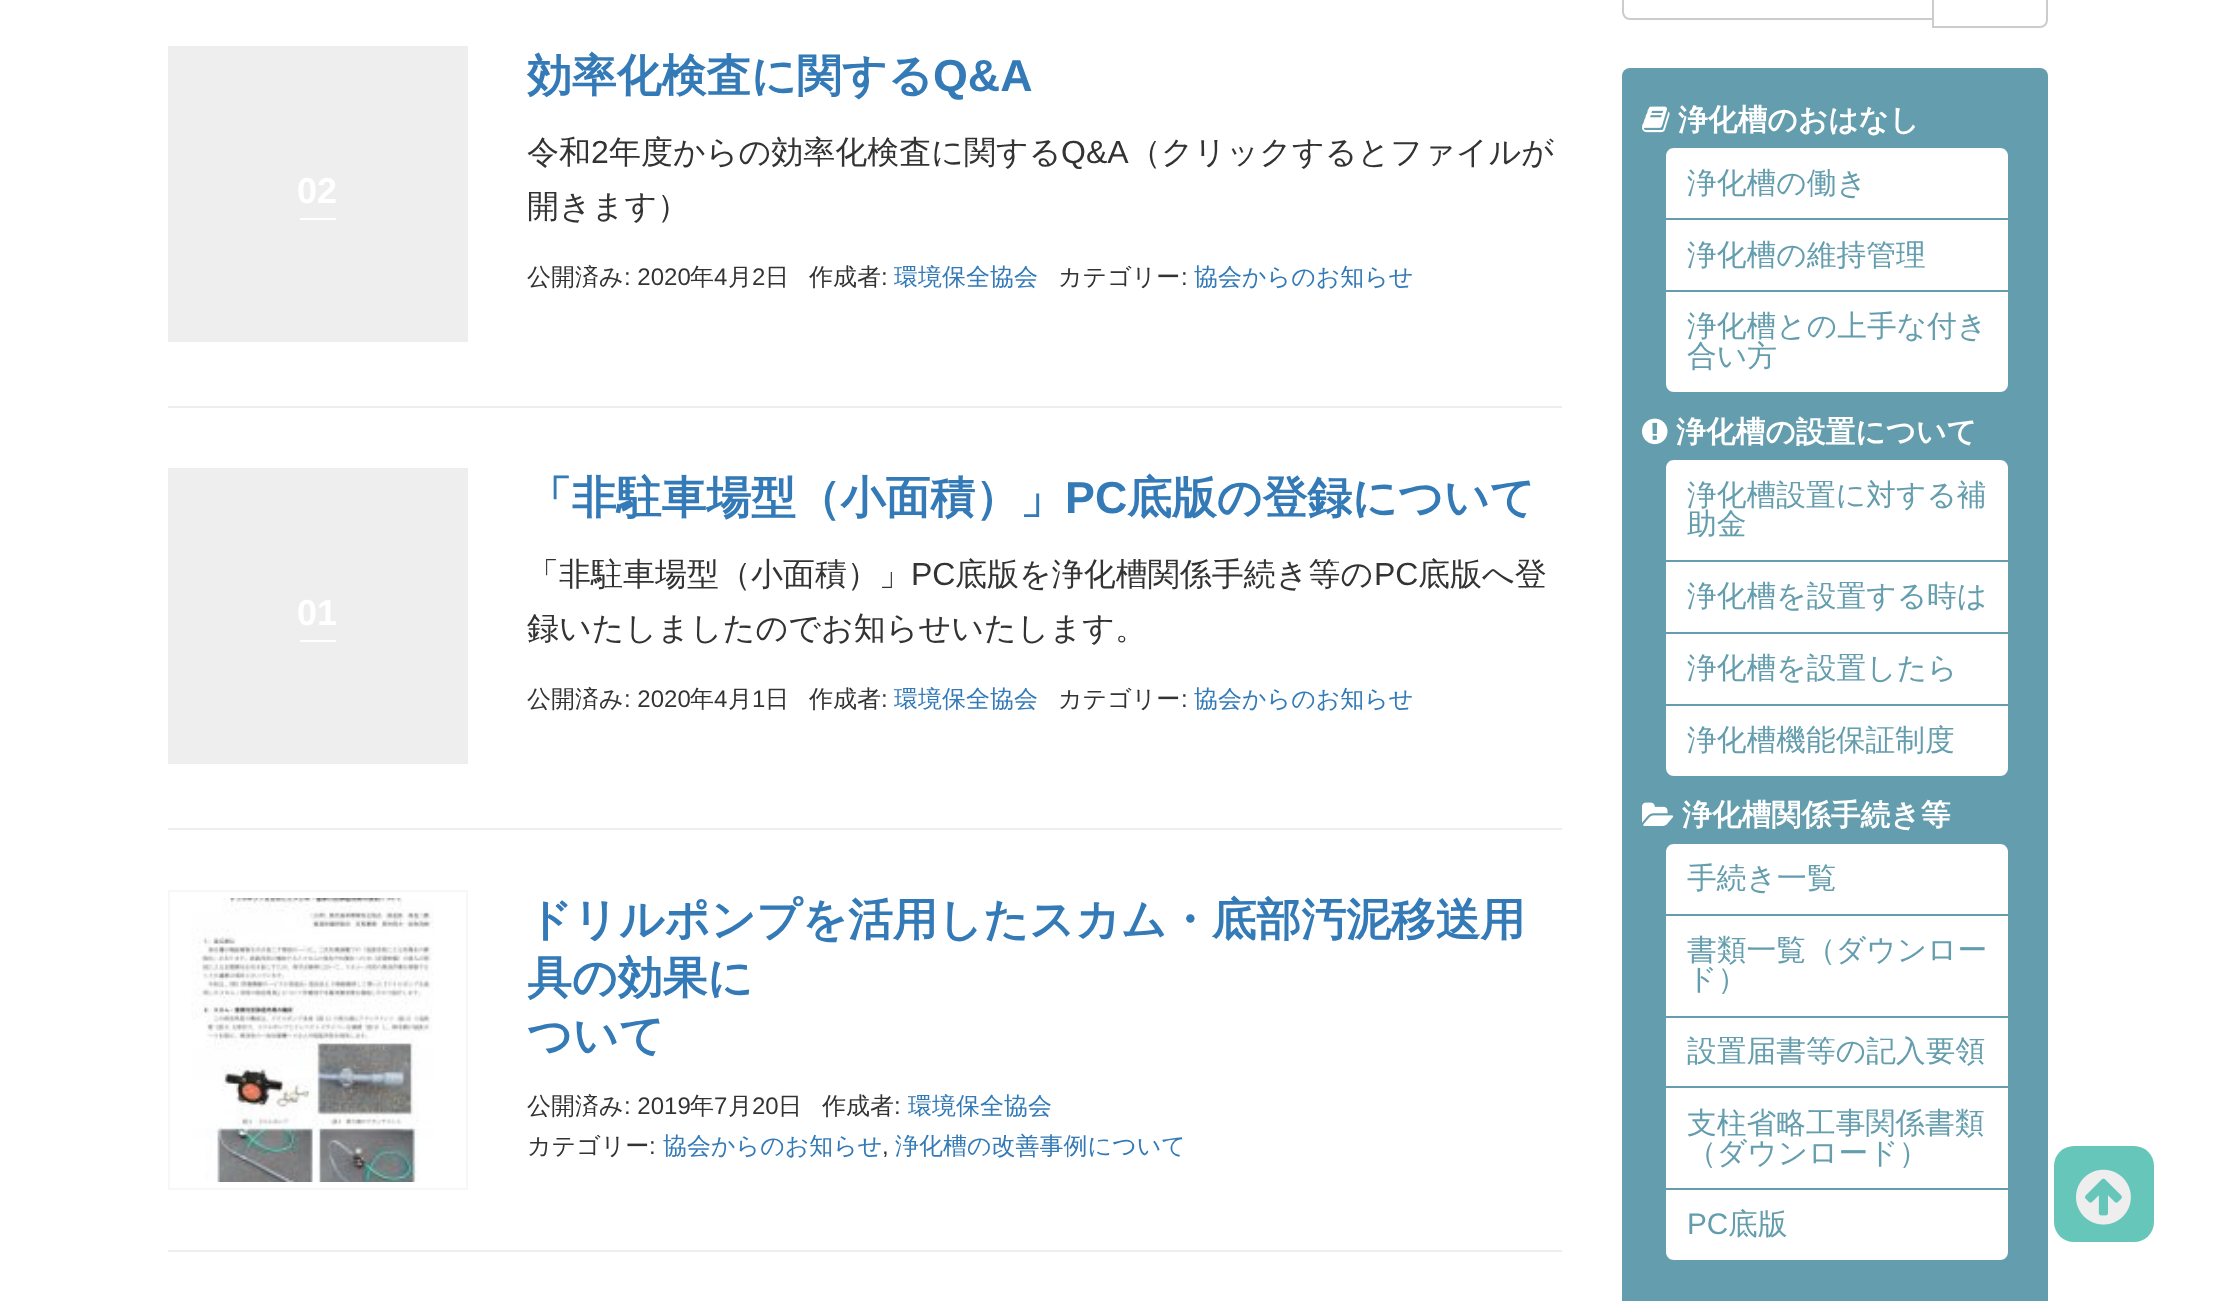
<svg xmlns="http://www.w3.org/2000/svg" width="2214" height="1301">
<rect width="100%" height="100%" fill="#fff"/>
<rect x="168" y="406" width="1394" height="2" fill="#eee"/>
<rect x="168" y="46" width="300" height="296" fill="#eee"/>
<text x="297" y="203" style="font-family:Liberation Sans;font-size:36px;font-weight:bold;fill:#fff">02</text>
<rect x="300" y="218" width="36" height="2" fill="#fff"/>
<text x="527" y="91" style="font-family:WenQuanYi Zen Hei;font-size:44.8px;font-weight:bold;fill:#337ab7">効率化検査に関する</text>
<text x="933" y="91" style="font-family:Liberation Sans;font-size:44.8px;font-weight:bold;fill:#337ab7">Q&amp;A</text>
<text x="527" y="163" style="font-family:WenQuanYi Zen Hei;font-size:32px;font-weight:500;fill:#333">令和</text>
<text x="591" y="163" style="font-family:Liberation Sans;font-size:32px;fill:#333">2</text>
<text x="609" y="163" style="font-family:WenQuanYi Zen Hei;font-size:32px;font-weight:500;fill:#333">年度からの効率化検査に関する</text>
<text x="1061" y="163" style="font-family:Liberation Sans;font-size:32px;fill:#333">Q&amp;A</text>
<text x="1129" y="163" style="font-family:WenQuanYi Zen Hei;font-size:32px;font-weight:500;fill:#333">（クリックするとファイルが</text>
<text x="527" y="217" style="font-family:WenQuanYi Zen Hei;font-size:32px;font-weight:500;fill:#333">開きます）</text>
<text x="527" y="285" style="font-family:WenQuanYi Zen Hei;font-size:24px;font-weight:500;fill:#333">公開済み</text>
<text x="624" y="285" style="font-family:Liberation Sans;font-size:24px;fill:#333">: 2020</text>
<text x="690" y="285" style="font-family:WenQuanYi Zen Hei;font-size:24px;font-weight:500;fill:#333">年</text>
<text x="714" y="285" style="font-family:Liberation Sans;font-size:24px;fill:#333">4</text>
<text x="728" y="285" style="font-family:WenQuanYi Zen Hei;font-size:24px;font-weight:500;fill:#333">月</text>
<text x="752" y="285" style="font-family:Liberation Sans;font-size:24px;fill:#333">2</text>
<text x="765" y="285" style="font-family:WenQuanYi Zen Hei;font-size:24px;font-weight:500;fill:#333">日</text>
<text x="809" y="285" style="font-family:WenQuanYi Zen Hei;font-size:24px;font-weight:500;fill:#333">作成者</text>
<text x="881" y="285" style="font-family:Liberation Sans;font-size:24px;fill:#333">:</text>
<text x="894" y="285" style="font-family:WenQuanYi Zen Hei;font-size:24px;font-weight:500;fill:#337ab7">環境保全協会</text>
<text x="1058" y="285" style="font-family:WenQuanYi Zen Hei;font-size:24px;font-weight:500;fill:#333">カテゴリー</text>
<text x="1181" y="285" style="font-family:Liberation Sans;font-size:24px;fill:#333">:</text>
<text x="1194" y="285" style="font-family:WenQuanYi Zen Hei;font-size:24px;font-weight:500;fill:#337ab7">協会からのお知らせ</text>
<rect x="168" y="828" width="1394" height="2" fill="#eee"/>
<rect x="168" y="468" width="300" height="296" fill="#eee"/>
<text x="297" y="625" style="font-family:Liberation Sans;font-size:36px;font-weight:bold;fill:#fff">01</text>
<rect x="300" y="640" width="36" height="2" fill="#fff"/>
<text x="527" y="513" style="font-family:WenQuanYi Zen Hei;font-size:44.8px;font-weight:bold;fill:#337ab7">「非駐車場型（小面積）」</text>
<text x="1065" y="513" style="font-family:Liberation Sans;font-size:44.8px;font-weight:bold;fill:#337ab7">PC</text>
<text x="1127" y="513" style="font-family:WenQuanYi Zen Hei;font-size:44.8px;font-weight:bold;fill:#337ab7">底版の登録について</text>
<text x="527" y="585" style="font-family:WenQuanYi Zen Hei;font-size:32px;font-weight:500;fill:#333">「非駐車場型（小面積）」</text>
<text x="911" y="585" style="font-family:Liberation Sans;font-size:32px;fill:#333">PC</text>
<text x="955" y="585" style="font-family:WenQuanYi Zen Hei;font-size:32px;font-weight:500;fill:#333">底版を浄化槽関係手続き等の</text>
<text x="1374" y="585" style="font-family:Liberation Sans;font-size:32px;fill:#333">PC</text>
<text x="1418" y="585" style="font-family:WenQuanYi Zen Hei;font-size:32px;font-weight:500;fill:#333">底版へ登</text>
<text x="527" y="639" style="font-family:WenQuanYi Zen Hei;font-size:32px;font-weight:500;fill:#333">録いたしましたのでお知らせいたします。</text>
<text x="527" y="707" style="font-family:WenQuanYi Zen Hei;font-size:24px;font-weight:500;fill:#333">公開済み</text>
<text x="624" y="707" style="font-family:Liberation Sans;font-size:24px;fill:#333">: 2020</text>
<text x="690" y="707" style="font-family:WenQuanYi Zen Hei;font-size:24px;font-weight:500;fill:#333">年</text>
<text x="714" y="707" style="font-family:Liberation Sans;font-size:24px;fill:#333">4</text>
<text x="728" y="707" style="font-family:WenQuanYi Zen Hei;font-size:24px;font-weight:500;fill:#333">月</text>
<text x="752" y="707" style="font-family:Liberation Sans;font-size:24px;fill:#333">1</text>
<text x="765" y="707" style="font-family:WenQuanYi Zen Hei;font-size:24px;font-weight:500;fill:#333">日</text>
<text x="809" y="707" style="font-family:WenQuanYi Zen Hei;font-size:24px;font-weight:500;fill:#333">作成者</text>
<text x="881" y="707" style="font-family:Liberation Sans;font-size:24px;fill:#333">:</text>
<text x="894" y="707" style="font-family:WenQuanYi Zen Hei;font-size:24px;font-weight:500;fill:#337ab7">環境保全協会</text>
<text x="1058" y="707" style="font-family:WenQuanYi Zen Hei;font-size:24px;font-weight:500;fill:#333">カテゴリー</text>
<text x="1181" y="707" style="font-family:Liberation Sans;font-size:24px;fill:#333">:</text>
<text x="1194" y="707" style="font-family:WenQuanYi Zen Hei;font-size:24px;font-weight:500;fill:#337ab7">協会からのお知らせ</text>
<rect x="168" y="1250" width="1394" height="2" fill="#eee"/>
<rect x="169" y="891" width="298" height="298" fill="none" stroke="#f7f7f7" stroke-width="2"/>
<image x="191" y="898" width="243" height="284" href="media/1.png"/>
<text x="527" y="935" style="font-family:WenQuanYi Zen Hei;font-size:44.8px;font-weight:bold;fill:#337ab7">ドリルポンプを活用したスカム・底部汚泥移送用</text>
<text x="527" y="993" style="font-family:WenQuanYi Zen Hei;font-size:44.8px;font-weight:bold;fill:#337ab7">具の効果に</text>
<text x="527" y="1051" style="font-family:WenQuanYi Zen Hei;font-size:44.8px;font-weight:bold;fill:#337ab7">ついて</text>
<text x="527" y="1114" style="font-family:WenQuanYi Zen Hei;font-size:24px;font-weight:500;fill:#333">公開済み</text>
<text x="624" y="1114" style="font-family:Liberation Sans;font-size:24px;fill:#333">: 2019</text>
<text x="690" y="1114" style="font-family:WenQuanYi Zen Hei;font-size:24px;font-weight:500;fill:#333">年</text>
<text x="714" y="1114" style="font-family:Liberation Sans;font-size:24px;fill:#333">7</text>
<text x="728" y="1114" style="font-family:WenQuanYi Zen Hei;font-size:24px;font-weight:500;fill:#333">月</text>
<text x="752" y="1114" style="font-family:Liberation Sans;font-size:24px;fill:#333">20</text>
<text x="778" y="1114" style="font-family:WenQuanYi Zen Hei;font-size:24px;font-weight:500;fill:#333">日</text>
<text x="822" y="1114" style="font-family:WenQuanYi Zen Hei;font-size:24px;font-weight:500;fill:#333">作成者</text>
<text x="894" y="1114" style="font-family:Liberation Sans;font-size:24px;fill:#333">:</text>
<text x="908" y="1114" style="font-family:WenQuanYi Zen Hei;font-size:24px;font-weight:500;fill:#337ab7">環境保全協会</text>
<text x="527" y="1154" style="font-family:WenQuanYi Zen Hei;font-size:24px;font-weight:500;fill:#333">カテゴリー</text>
<text x="649" y="1154" style="font-family:Liberation Sans;font-size:24px;fill:#333">:</text>
<text x="663" y="1154" style="font-family:WenQuanYi Zen Hei;font-size:24px;font-weight:500;fill:#337ab7">協会からのお知らせ</text>
<text x="882" y="1154" style="font-family:Liberation Sans;font-size:24px;fill:#333">,</text>
<text x="895" y="1154" style="font-family:WenQuanYi Zen Hei;font-size:24px;font-weight:500;fill:#337ab7">浄化槽の改善事例について</text>
<path d="M1933-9h107c4 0 7 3 7 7v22c0 4-3 7-7 7h-107z" fill="none" stroke="#ccc" stroke-width="2"/>
<path d="M1630-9h303v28h-303c-4 0-7-3-7-7v-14c0-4 3-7 7-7z" fill="#fff" stroke="#ccc" stroke-width="2"/>
<rect x="1622" y="68" width="426" height="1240" rx="8" fill="#649dad"/>
<image x="1642" y="106" width="28" height="27" href="media/2.png"/>
<text x="1678" y="130" style="font-family:WenQuanYi Zen Hei;font-size:29.75px;font-weight:bold;fill:#fff">浄化槽のおはなし</text>
<path d="M1674 148h326c4.5 0 8 3.5 8 8v62h-342v-62c0-4.5 3.5-8 8-8z" fill="#fff"/>
<text x="1687" y="193" style="font-family:WenQuanYi Zen Hei;font-size:29.75px;font-weight:500;fill:#649dad">浄化槽の働き</text>
<rect x="1666" y="220" width="342" height="70" fill="#fff"/>
<text x="1687" y="265" style="font-family:WenQuanYi Zen Hei;font-size:29.75px;font-weight:500;fill:#649dad">浄化槽の維持管理</text>
<path d="M1666 292h342v92c0 4.5-3.5 8-8 8h-326c-4.5 0-8-3.5-8-8z" fill="#fff"/>
<text x="1687" y="336" style="font-family:WenQuanYi Zen Hei;font-size:29.75px;font-weight:500;fill:#649dad">浄化槽との上手な付き</text>
<text x="1687" y="366" style="font-family:WenQuanYi Zen Hei;font-size:29.75px;font-weight:500;fill:#649dad">合い方</text>
<image x="1642" y="418" width="26" height="27" href="media/3.png"/>
<text x="1676" y="442" style="font-family:WenQuanYi Zen Hei;font-size:29.75px;font-weight:bold;fill:#fff">浄化槽の設置について</text>
<path d="M1674 460h326c4.5 0 8 3.5 8 8v92h-342v-92c0-4.5 3.5-8 8-8z" fill="#fff"/>
<text x="1687" y="505" style="font-family:WenQuanYi Zen Hei;font-size:29.75px;font-weight:500;fill:#649dad">浄化槽設置に対する補</text>
<text x="1687" y="534" style="font-family:WenQuanYi Zen Hei;font-size:29.75px;font-weight:500;fill:#649dad">助金</text>
<rect x="1666" y="562" width="342" height="70" fill="#fff"/>
<text x="1687" y="606" style="font-family:WenQuanYi Zen Hei;font-size:29.75px;font-weight:500;fill:#649dad">浄化槽を設置する時は</text>
<rect x="1666" y="634" width="342" height="70" fill="#fff"/>
<text x="1687" y="678" style="font-family:WenQuanYi Zen Hei;font-size:29.75px;font-weight:500;fill:#649dad">浄化槽を設置したら</text>
<path d="M1666 706h342v62c0 4.5-3.5 8-8 8h-326c-4.5 0-8-3.5-8-8z" fill="#fff"/>
<text x="1687" y="750" style="font-family:WenQuanYi Zen Hei;font-size:29.75px;font-weight:500;fill:#649dad">浄化槽機能保証制度</text>
<image x="1642" y="802" width="32" height="24" href="media/4.png"/>
<text x="1682" y="825" style="font-family:WenQuanYi Zen Hei;font-size:29.75px;font-weight:bold;fill:#fff">浄化槽関係手続き等</text>
<path d="M1674 844h326c4.5 0 8 3.5 8 8v62h-342v-62c0-4.5 3.5-8 8-8z" fill="#fff"/>
<text x="1687" y="888" style="font-family:WenQuanYi Zen Hei;font-size:29.75px;font-weight:500;fill:#649dad">手続き一覧</text>
<rect x="1666" y="916" width="342" height="100" fill="#fff"/>
<text x="1687" y="960" style="font-family:WenQuanYi Zen Hei;font-size:29.75px;font-weight:500;fill:#649dad">書類一覧（ダウンロー</text>
<text x="1687" y="989" style="font-family:WenQuanYi Zen Hei;font-size:29.75px;font-weight:500;fill:#649dad">ド）</text>
<rect x="1666" y="1018" width="342" height="68" fill="#fff"/>
<text x="1687" y="1061" style="font-family:WenQuanYi Zen Hei;font-size:29.75px;font-weight:500;fill:#649dad">設置届書等の記入要領</text>
<rect x="1666" y="1088" width="342" height="100" fill="#fff"/>
<text x="1687" y="1133" style="font-family:WenQuanYi Zen Hei;font-size:29.75px;font-weight:500;fill:#649dad">支柱省略工事関係書類</text>
<text x="1687" y="1163" style="font-family:WenQuanYi Zen Hei;font-size:29.75px;font-weight:500;fill:#649dad">（ダウンロード）</text>
<path d="M1666 1190h342v62c0 4.5-3.5 8-8 8h-326c-4.5 0-8-3.5-8-8z" fill="#fff"/>
<text x="1687" y="1234" style="font-family:Liberation Sans;font-size:29.75px;fill:#649dad">PC</text>
<text x="1728" y="1234" style="font-family:WenQuanYi Zen Hei;font-size:29.75px;font-weight:500;fill:#649dad">底版</text>
<rect x="2054" y="1146" width="100" height="96" rx="20" fill="#66c6ba"/>
<image x="2076" y="1169" width="55" height="56" href="media/5.png"/>
</svg>
